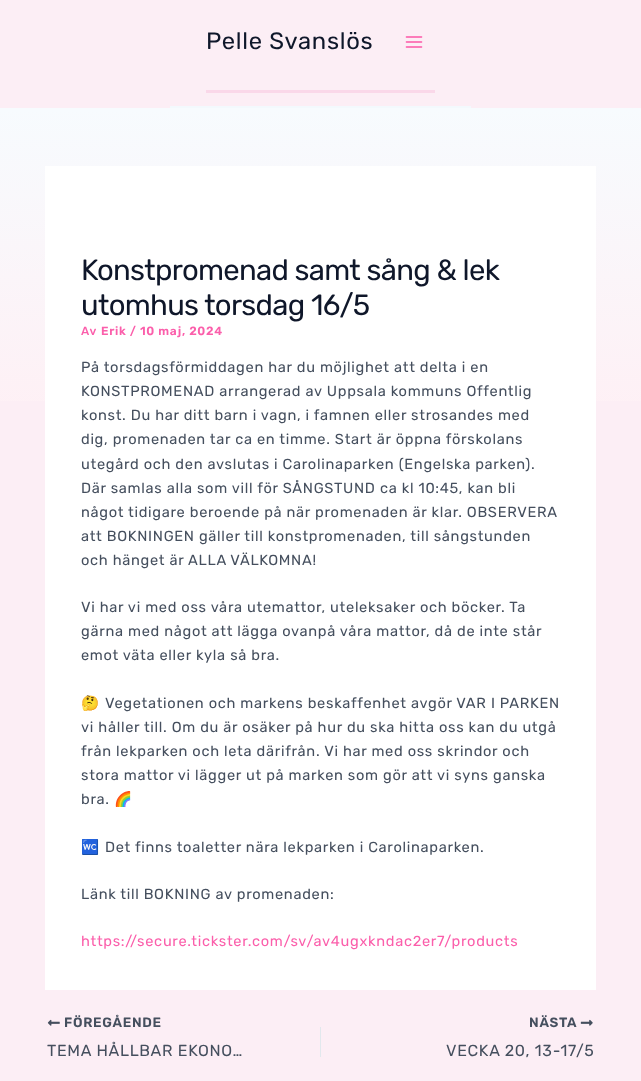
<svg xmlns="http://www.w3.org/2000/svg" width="641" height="1081">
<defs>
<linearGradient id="g1" gradientUnits="userSpaceOnUse" x1="320" y1="108" x2="321" y2="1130"><stop offset="0" stop-color="#f7fbfe"/><stop offset="0.3" stop-color="#fef0f5"/></linearGradient>
</defs>
<rect width="100%" height="100%" fill="#fceef5"/>
<rect x="170" y="106" width="301" height="2" fill="#f3f9fd"/>
<rect x="206" y="90" width="229" height="3" fill="#fad8e9"/>
<text x="206" y="49" style="font-family:Rubik;font-size:23.75px;letter-spacing:0.7px;fill:#0f172a">Pelle Svanslös</text>
<image x="405" y="36" width="18" height="12" href="media/1.png"/>
<rect y="108" width="641" height="293" fill="url(#g1)"/>
<rect x="45" y="166" width="551" height="824" fill="#fff"/>
<text x="81" y="280" style="font-family:Rubik;font-size:29.25px;letter-spacing:-0.7px;fill:#0f172a">Konstpromenad samt sång &amp; lek</text>
<text x="81" y="315" style="font-family:Rubik;font-size:29.25px;letter-spacing:-0.7px;fill:#0f172a">utomhus torsdag 16/5</text>
<text x="81" y="335" style="font-family:Rubik;font-size:11.9px;font-weight:500;letter-spacing:0.7px;fill:#fb5fab">Av</text>
<text x="101" y="335" style="font-family:Rubik;font-size:11.9px;font-weight:600;letter-spacing:0.7px;fill:#fb5fab">Erik / 10 maj, 2024</text>
<text x="81" y="372" style="font-family:Rubik;font-size:14.6px;letter-spacing:0.7px;fill:#454f5e">På torsdagsförmiddagen har du möjlighet att delta i en</text>
<text x="81" y="396" style="font-family:Rubik;font-size:14.6px;letter-spacing:0.7px;fill:#454f5e">KONSTPROMENAD arrangerad av Uppsala kommuns Offentlig</text>
<text x="81" y="420" style="font-family:Rubik;font-size:14.6px;letter-spacing:0.7px;fill:#454f5e">konst. Du har ditt barn i vagn, i famnen eller strosandes med</text>
<text x="81" y="444" style="font-family:Rubik;font-size:14.6px;letter-spacing:0.7px;fill:#454f5e">dig, promenaden tar ca en timme. Start är öppna förskolans</text>
<text x="81" y="469" style="font-family:Rubik;font-size:14.6px;letter-spacing:0.7px;fill:#454f5e">utegård och den avslutas i Carolinaparken (Engelska parken).</text>
<text x="81" y="493" style="font-family:Rubik;font-size:14.6px;letter-spacing:0.7px;fill:#454f5e">Där samlas alla som vill för SÅNGSTUND ca kl 10:45, kan bli</text>
<text x="81" y="517" style="font-family:Rubik;font-size:14.6px;letter-spacing:0.7px;fill:#454f5e">något tidigare beroende på när promenaden är klar. OBSERVERA</text>
<text x="81" y="541" style="font-family:Rubik;font-size:14.6px;letter-spacing:0.7px;fill:#454f5e">att BOKNINGEN gäller till konstpromenaden, till sångstunden</text>
<text x="81" y="565" style="font-family:Rubik;font-size:14.6px;letter-spacing:0.7px;fill:#454f5e">och hänget är ALLA VÄLKOMNA!</text>
<text x="81" y="612" style="font-family:Rubik;font-size:14.6px;letter-spacing:0.7px;fill:#454f5e">Vi har vi med oss våra utemattor, uteleksaker och böcker. Ta</text>
<text x="81" y="636" style="font-family:Rubik;font-size:14.6px;letter-spacing:0.7px;fill:#454f5e">gärna med något att lägga ovanpå våra mattor, då de inte står</text>
<text x="81" y="660" style="font-family:Rubik;font-size:14.6px;letter-spacing:0.7px;fill:#454f5e">emot väta eller kyla så bra.</text>
<text x="81" y="708" style="font-family:Noto Color Emoji;font-size:14.6px;letter-spacing:0.7px;fill:#454f5e">🤔</text>
<text x="105" y="708" style="font-family:Rubik;font-size:14.6px;letter-spacing:0.7px;fill:#454f5e">Vegetationen och markens beskaffenhet avgör VAR I PARKEN</text>
<text x="81" y="732" style="font-family:Rubik;font-size:14.6px;letter-spacing:0.7px;fill:#454f5e">vi håller till. Om du är osäker på hur du ska hitta oss kan du utgå</text>
<text x="81" y="756" style="font-family:Rubik;font-size:14.6px;letter-spacing:0.7px;fill:#454f5e">från lekparken och leta därifrån. Vi har med oss skrindor och</text>
<text x="81" y="780" style="font-family:Rubik;font-size:14.6px;letter-spacing:0.7px;fill:#454f5e">stora mattor vi lägger ut på marken som gör att vi syns ganska</text>
<text x="81" y="804" style="font-family:Rubik;font-size:14.6px;letter-spacing:0.7px;fill:#454f5e">bra.</text>
<text x="114" y="804" style="font-family:Noto Color Emoji;font-size:14.6px;letter-spacing:0.7px;fill:#454f5e">🌈</text>
<text x="81" y="852" style="font-family:Noto Color Emoji;font-size:14.6px;letter-spacing:0.7px;fill:#454f5e">🚾</text>
<text x="105" y="852" style="font-family:Rubik;font-size:14.6px;letter-spacing:0.7px;fill:#454f5e">Det finns toaletter nära lekparken i Carolinaparken.</text>
<text x="81" y="899" style="font-family:Rubik;font-size:14.6px;letter-spacing:0.7px;fill:#454f5e">Länk till BOKNING av promenaden:</text>
<text x="81" y="946" style="font-family:Rubik;font-size:14.6px;letter-spacing:0.7px;fill:#fb5fab">https://secure.tickster.com/sv/av4ugxkndac2er7/products</text>
<image x="47" y="1019" width="13" height="7" href="media/2.png"/>
<text x="64" y="1027" style="font-family:Rubik;font-size:13.5px;font-weight:600;letter-spacing:0.75px;fill:#454f5e">FÖREGÅENDE</text>
<text x="47" y="1056" style="font-family:Rubik;font-size:16px;letter-spacing:0.7px;fill:#454f5e">TEMA HÅLLBAR EKONO…</text>
<rect x="320" y="1027" width="1" height="30" fill="#e1e8ed"/>
<text x="529" y="1027" style="font-family:Rubik;font-size:13.5px;font-weight:600;letter-spacing:0.75px;fill:#454f5e">NÄSTA</text>
<image x="580" y="1019" width="13" height="7" href="media/3.png"/>
<text x="446" y="1056" style="font-family:Rubik;font-size:16px;letter-spacing:0.7px;fill:#454f5e">VECKA 20, 13-17/5</text>
</svg>
